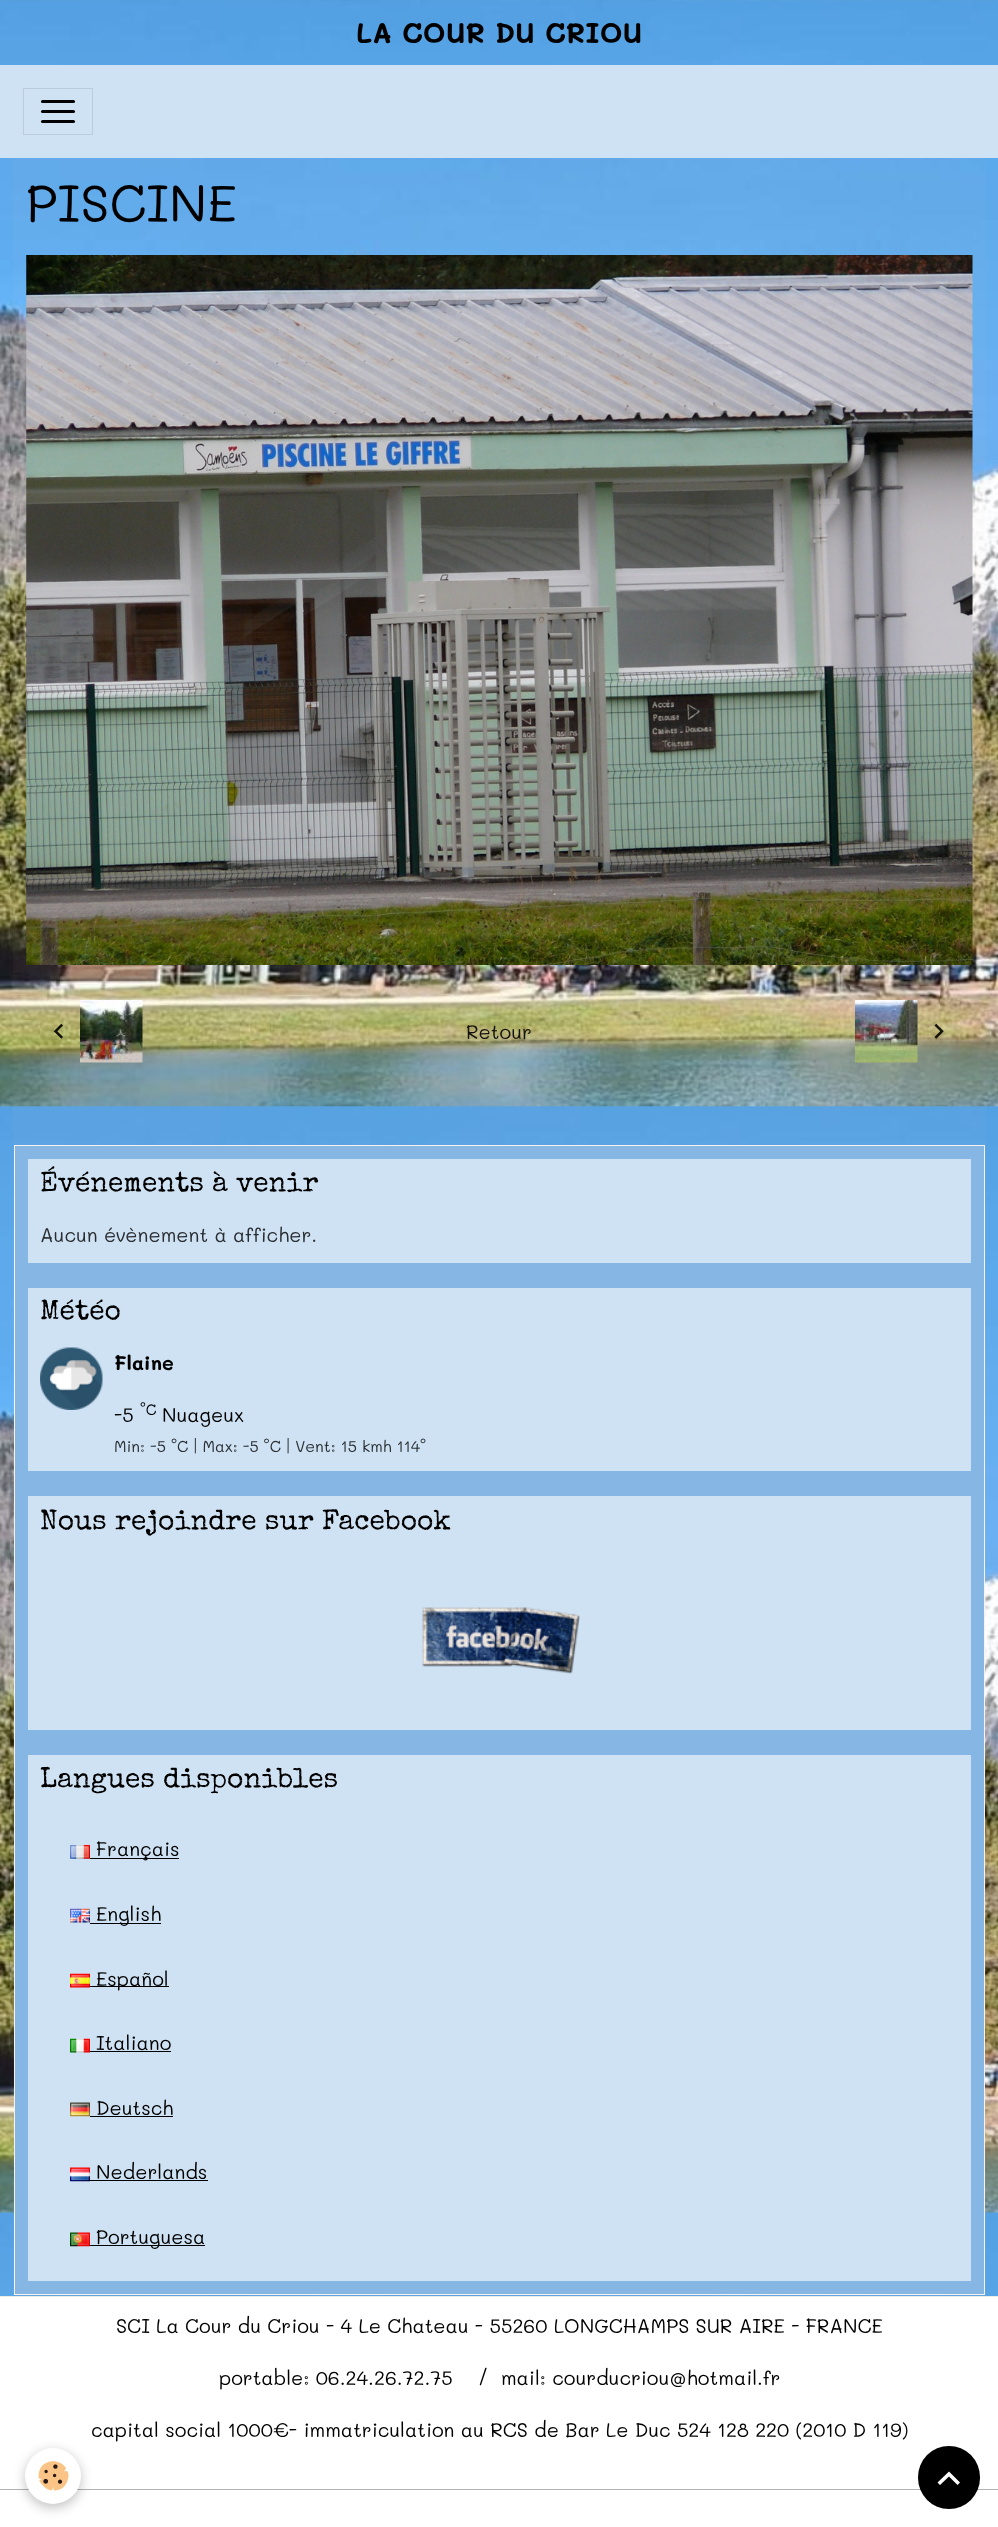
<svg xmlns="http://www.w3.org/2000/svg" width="998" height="2527">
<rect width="100%" height="100%" fill="#fff"/>
<image x="0" y="0" width="998" height="2296" href="media/1.png"/>
<text x="356" y="43" style="font-family:Mali;font-size:28.1px;font-weight:bold;fill:#000">LA COUR DU CRIOU</text>
<rect y="65" width="998" height="93" fill="#cfe2f3"/>
<rect x="23.5" y="88.5" width="69" height="46" fill="none" stroke="#bacbdb"/>
<rect x="41" y="100" width="34" height="3" rx="1.5" fill="#000"/>
<rect x="41" y="110" width="34" height="3" rx="1.5" fill="#000"/>
<rect x="41" y="120" width="34" height="3" rx="1.5" fill="#000"/>
<rect x="13" y="158" width="973" height="2138" fill="#fce5cd08"/>
<text x="26" y="222" style="font-family:Mali;font-size:51.75px;fill:#000">PISCINE</text>
<image x="26" y="255" width="947" height="710" href="media/2.png"/>
<image x="53" y="1023" width="10" height="16" href="media/3.png"/>
<image x="80" y="1000" width="63" height="63" href="media/4.png"/>
<text x="466" y="1039" style="font-family:Mali;font-size:19.7px;fill:#13120c">Retour</text>
<image x="855" y="1000" width="63" height="63" href="media/5.png"/>
<image x="934" y="1023" width="10" height="16" href="media/6.png"/>
<rect x="14.5" y="1145.5" width="970" height="1149" fill="#86b7e4" stroke="#fbf1eb"/>
<rect x="28" y="1159" width="943" height="104" fill="#cfe2f3"/>
<text x="40" y="1191" style="font-family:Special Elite;font-size:28.1px;fill:#000">Événements à venir</text>
<text x="40" y="1242" style="font-family:Mali;font-size:19.7px;fill:#292d31">Aucun évènement à afficher.</text>
<rect x="28" y="1288" width="943" height="183" fill="#cfe2f3"/>
<text x="40" y="1319" style="font-family:Special Elite;font-size:28.1px;fill:#000">Météo</text>
<image x="40" y="1347" width="63" height="63" href="media/7.png"/>
<text x="114" y="1370" style="font-family:Mali;font-size:19.7px;font-weight:bold;fill:#000">Flaine</text>
<text x="114" y="1422" style="font-family:Mali;font-size:19.7px;fill:#000">-5</text>
<text x="140" y="1415" style="font-family:Mali;font-size:15px;fill:#000">°C</text>
<text x="162" y="1422" style="font-family:Mali;font-size:19.7px;fill:#000">Nuageux</text>
<text x="114" y="1452" style="font-family:Mali;font-size:15.75px;fill:#292d31">Min: -5 °C | Max: -5 °C | Vent: 15 kmh 114°</text>
<rect x="28" y="1496" width="943" height="234" fill="#cfe2f3"/>
<text x="40" y="1529" style="font-family:Special Elite;font-size:28.1px;fill:#000">Nous rejoindre sur Facebook</text>
<image x="422" y="1607" width="158" height="67" href="media/8.png"/>
<rect x="28" y="1755" width="943" height="526" fill="#cfe2f3"/>
<text x="40" y="1787" style="font-family:Special Elite;font-size:28.1px;fill:#000">Langues disponibles</text>
<image x="70" y="1845" width="20" height="14" href="media/9.png"/>
<rect x="90" y="1858" width="89" height="1" fill="#000"/>
<text x="96" y="1856" style="font-family:Mali;font-size:19.7px;fill:#000">Français</text>
<image x="70" y="1908" width="20" height="15" href="media/10.png"/>
<rect x="90" y="1923" width="71" height="1" fill="#000"/>
<text x="96" y="1921" style="font-family:Mali;font-size:19.7px;fill:#000">English</text>
<image x="70" y="1973" width="20" height="15" href="media/11.png"/>
<rect x="90" y="1986" width="79" height="1" fill="#000"/>
<text x="96" y="1986" style="font-family:Mali;font-size:19.7px;fill:#000">Español</text>
<image x="70" y="2038" width="20" height="15" href="media/12.png"/>
<text x="96" y="2050" style="font-family:Mali;font-size:19.7px;fill:#000">Italiano</text>
<rect x="90" y="2051" width="81" height="1" fill="#000"/>
<image x="70" y="2102" width="20" height="15" href="media/13.png"/>
<text x="96" y="2115" style="font-family:Mali;font-size:19.7px;fill:#000">Deutsch</text>
<rect x="90" y="2116" width="83" height="1" fill="#000"/>
<image x="70" y="2167" width="20" height="15" href="media/14.png"/>
<text x="96" y="2179" style="font-family:Mali;font-size:19.7px;fill:#000">Nederlands</text>
<rect x="90" y="2180" width="118" height="1" fill="#000"/>
<image x="70" y="2232" width="20" height="15" href="media/15.png"/>
<rect x="90" y="2245" width="115" height="1" fill="#000"/>
<text x="96" y="2244" style="font-family:Mali;font-size:19.7px;fill:#000">Portuguesa</text>
<rect y="2296" width="998" height="1" fill="#efece2"/>
<text x="116" y="2333" style="font-family:Mali;font-size:19.7px;fill:#000">SCI La Cour du Criou - 4 Le Chateau - 55260 LONGCHAMPS SUR AIRE - FRANCE</text>
<text x="219" y="2385" style="font-family:Mali;font-size:19.7px;fill:#000" xml:space="preserve">portable: 06.24.26.72.75    /  mail: courducriou@hotmail.fr</text>
<text x="91" y="2437" style="font-family:Mali;font-size:19.7px;fill:#000">capital social 1000€- immatriculation au RCS de Bar Le Duc 524 128 220 (2010 D 119)</text>
<rect y="2489" width="998" height="1" fill="#b3b3b3"/>
<rect x="25" y="2451" width="56" height="57" rx="28" fill="#0000003d" filter="blur(6px)"/>
<circle cx="53" cy="2476" r="28" fill="#fff"/>
<image x="38" y="2461" width="31" height="30" href="media/16.png"/>
<rect x="918" y="2446" width="62" height="63" rx="31" fill="#000"/>
<path d="M949 2471.5l11 11l-2.5 2.5l-8.5-8.5l-9 8.5l-2.5-2.5z" fill="#fff"/>
</svg>
